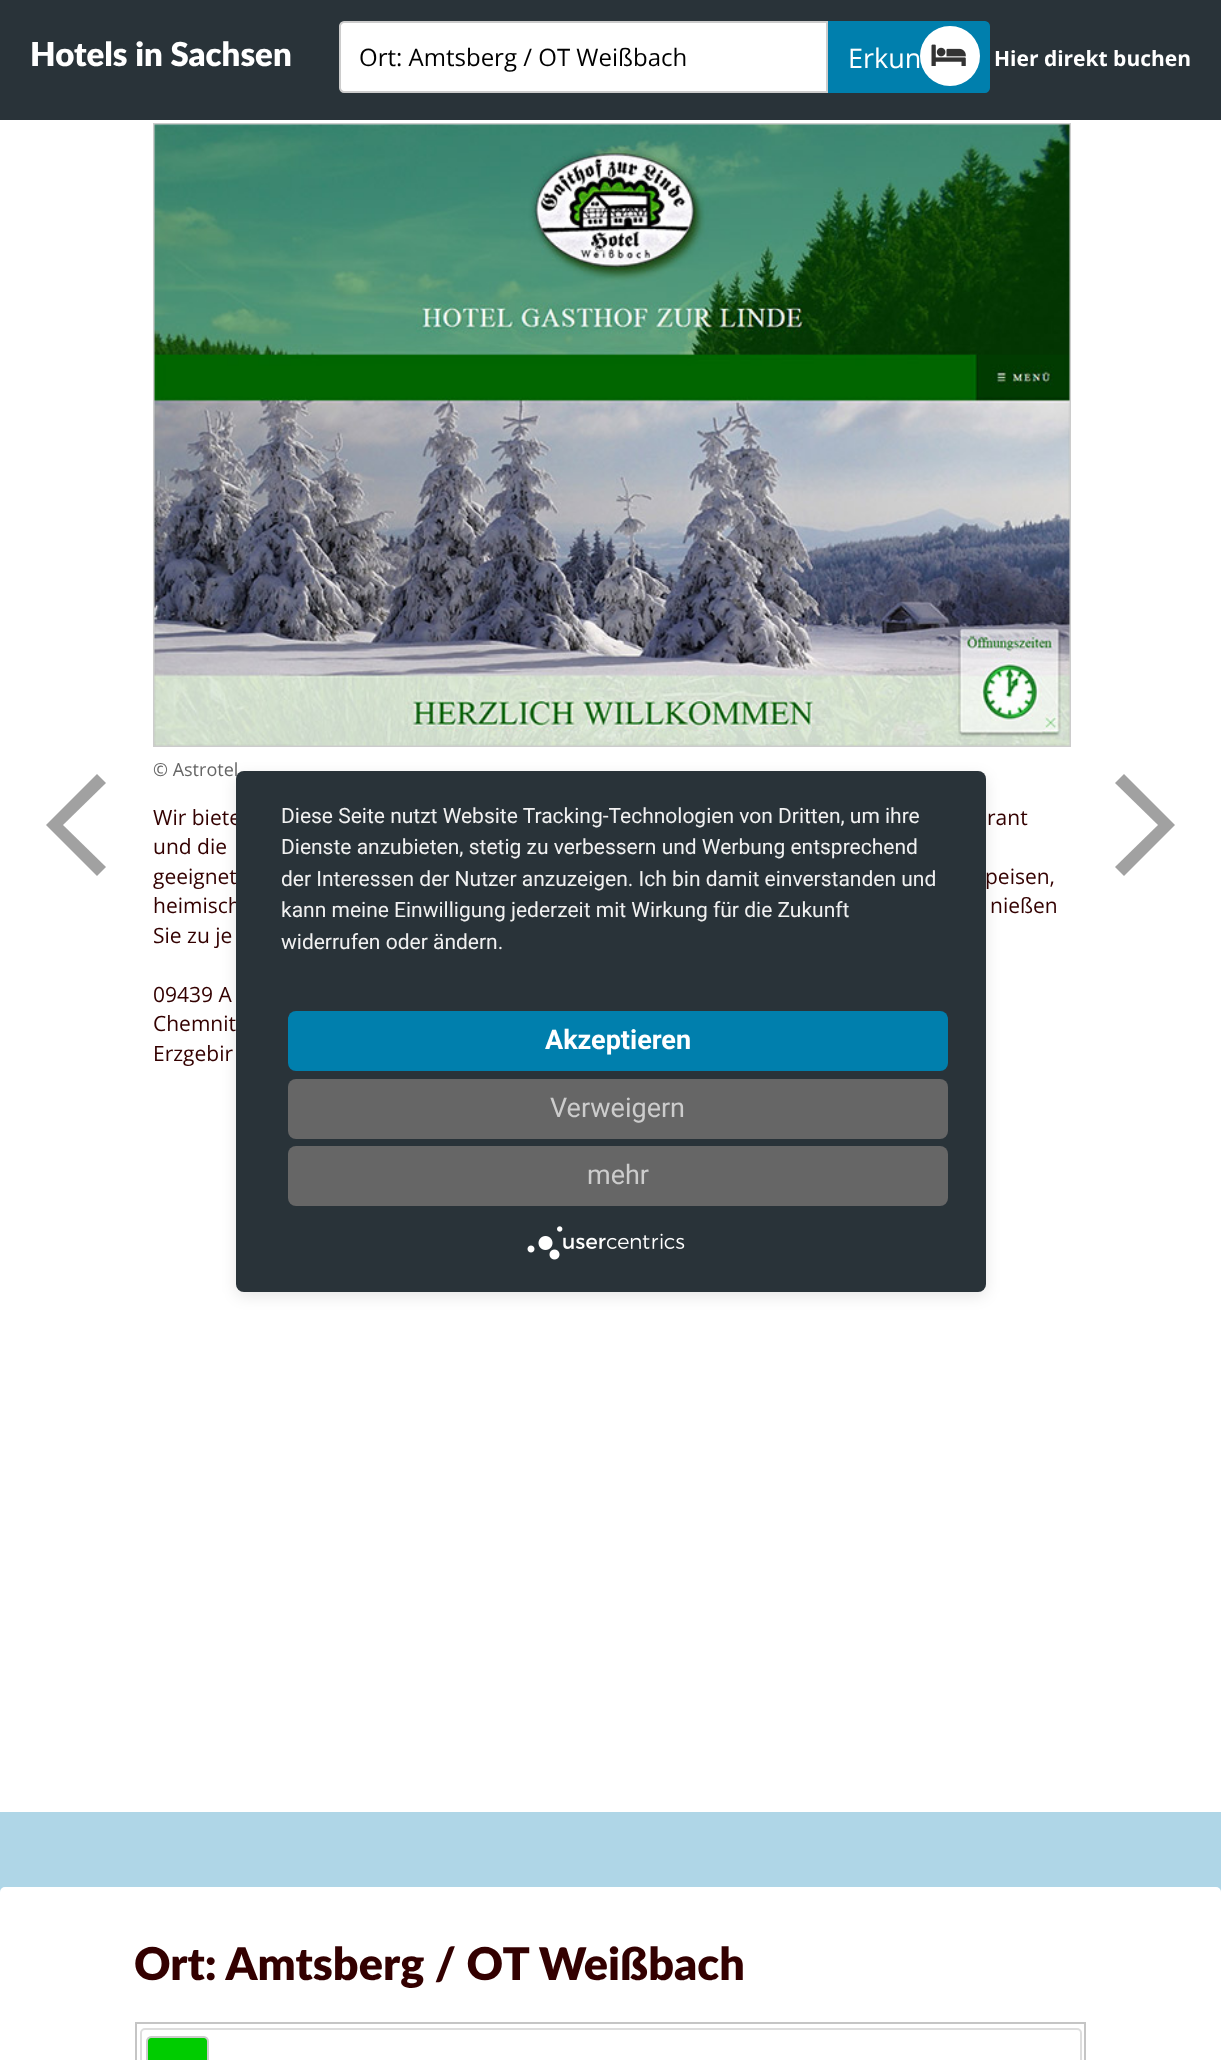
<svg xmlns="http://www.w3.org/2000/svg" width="1221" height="2060">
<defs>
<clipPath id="clip1"><rect x="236" y="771" width="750" height="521" rx="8"/></clipPath>
</defs>
<rect width="100%" height="100%" fill="#fff"/>
<rect width="1221" height="120" fill="#293339"/>
<text x="30" y="66" style="font-family:Lato;font-size:33px;font-weight:900;fill:#fff">Hotels in Sachsen</text>
<path d="M344 22h483v70h-483c-2 0-4-2-4-4v-62c0-2 2-4 4-4z" fill="#fff" stroke="#ccc" stroke-width="2"/>
<text x="359" y="66" style="font-family:Open Sans;font-size:24px;fill:#000">Ort: Amtsberg / OT Weißbach</text>
<path d="M829 22h156c2 0 4 2 4 4v62c0 2-2 4-4 4h-156z" fill="#007fad" stroke="#007fad" stroke-width="2"/>
<text x="848" y="68" style="font-family:Open Sans;font-size:27px;fill:#fff">Erkun</text>
<circle cx="950" cy="56" r="30" fill="#fff"/>
<image x="931" y="44" width="35" height="22" href="media/1.png"/>
<text x="994" y="66" style="font-family:Open Sans;font-size:21px;font-weight:bold;fill:#fff">Hier direkt buchen</text>
<rect x="154" y="124" width="916" height="622" fill="none" stroke="#ccc" stroke-width="2"/>
<image x="154" y="124" width="916" height="622" href="media/2.png"/>
<text x="153" y="776" style="font-family:Open Sans;font-size:18px;fill:#666">© Astrotel</text>
<text x="153" y="825" style="font-family:Open Sans;font-size:21px;fill:#300">Wir biete</text>
<text x="987" y="825" style="font-family:Open Sans;font-size:21px;fill:#300">rant</text>
<text x="153" y="854" style="font-family:Open Sans;font-size:21px;fill:#300">und die</text>
<text x="153" y="884" style="font-family:Open Sans;font-size:21px;fill:#300">geeignet</text>
<text x="985" y="884" style="font-family:Open Sans;font-size:21px;fill:#300">peisen,</text>
<text x="153" y="913" style="font-family:Open Sans;font-size:21px;fill:#300">heimisch</text>
<text x="990" y="913" style="font-family:Open Sans;font-size:21px;fill:#300">nießen</text>
<text x="153" y="943" style="font-family:Open Sans;font-size:21px;fill:#300">Sie zu je</text>
<text x="153" y="1002" style="font-family:Open Sans;font-size:21px;fill:#300">09439 A</text>
<text x="153" y="1031" style="font-family:Open Sans;font-size:21px;fill:#300">Chemnit</text>
<text x="153" y="1061" style="font-family:Open Sans;font-size:21px;fill:#300">Erzgebir</text>
<path d="M97 876l-51-51h17l43 42z" fill="#a1a1a1"/>
<path d="M46 825l51-51l9 9l-43 42z" fill="#a1a1a1"/>
<path d="M1124 774l51 51h-17l-43-42z" fill="#a1a1a1"/>
<path d="M1175 825l-51 51l-9-9l43-42z" fill="#a1a1a1"/>
<rect x="236" y="776" width="750" height="520" rx="8" fill="#0000001a" filter="blur(7.5px)"/>
<g clip-path="url(#clip1)">
<rect x="236" y="780" width="750" height="521" fill="#0000004d" filter="blur(27px)"/>
</g>
<rect x="236" y="771" width="750" height="521" rx="8" fill="#293339"/>
<text x="281" y="823" style="font-family:Roboto;font-size:21px;fill:#f1f1f1">Diese Seite nutzt Website Tracking-Technologien von Dritten, um ihre</text>
<text x="281" y="854" style="font-family:Roboto;font-size:21px;fill:#f1f1f1">Dienste anzubieten, stetig zu verbessern und Werbung entsprechend</text>
<text x="281" y="886" style="font-family:Roboto;font-size:21px;fill:#f1f1f1">der Interessen der Nutzer anzuzeigen. Ich bin damit einverstanden und</text>
<text x="281" y="917" style="font-family:Roboto;font-size:21px;fill:#f1f1f1">kann meine Einwilligung jederzeit mit Wirkung für die Zukunft</text>
<text x="281" y="949" style="font-family:Roboto;font-size:21px;fill:#f1f1f1">widerrufen oder ändern.</text>
<rect x="288" y="1011" width="660" height="60" rx="8" fill="#007fad"/>
<text x="545" y="1049" style="font-family:Roboto;font-size:27px;font-weight:bold;fill:#fff">Akzeptieren</text>
<rect x="288" y="1079" width="660" height="60" rx="8" fill="#666"/>
<text x="550" y="1117" style="font-family:Roboto;font-size:27px;fill:#ccc">Verweigern</text>
<rect x="288" y="1146" width="660" height="60" rx="8" fill="#666"/>
<text x="587" y="1184" style="font-family:Roboto;font-size:27px;fill:#ccc">mehr</text>
<image x="527" y="1226" width="158" height="34" href="media/3.png"/>
<rect y="1812" width="1221" height="80" fill="#afd6e7"/>
<rect y="1887" width="1221" height="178" rx="5" fill="#fff"/>
<text x="134" y="1980" style="font-family:Lato;font-size:45px;font-weight:900;fill:#300">Ort: Amtsberg / OT Weißbach</text>
<rect x="136" y="2023" width="949" height="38" fill="none" stroke="#c5c5c5" stroke-width="2"/>
<rect x="141" y="2029" width="940" height="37" rx="4" fill="none" stroke="#ddd" stroke-width="2"/>
<path d="M151 2037h53c2 0 4 2 4 4v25h-61v-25c0-2 2-4 4-4z" fill="#0c0" stroke="#ccc" stroke-width="2"/>
</svg>
